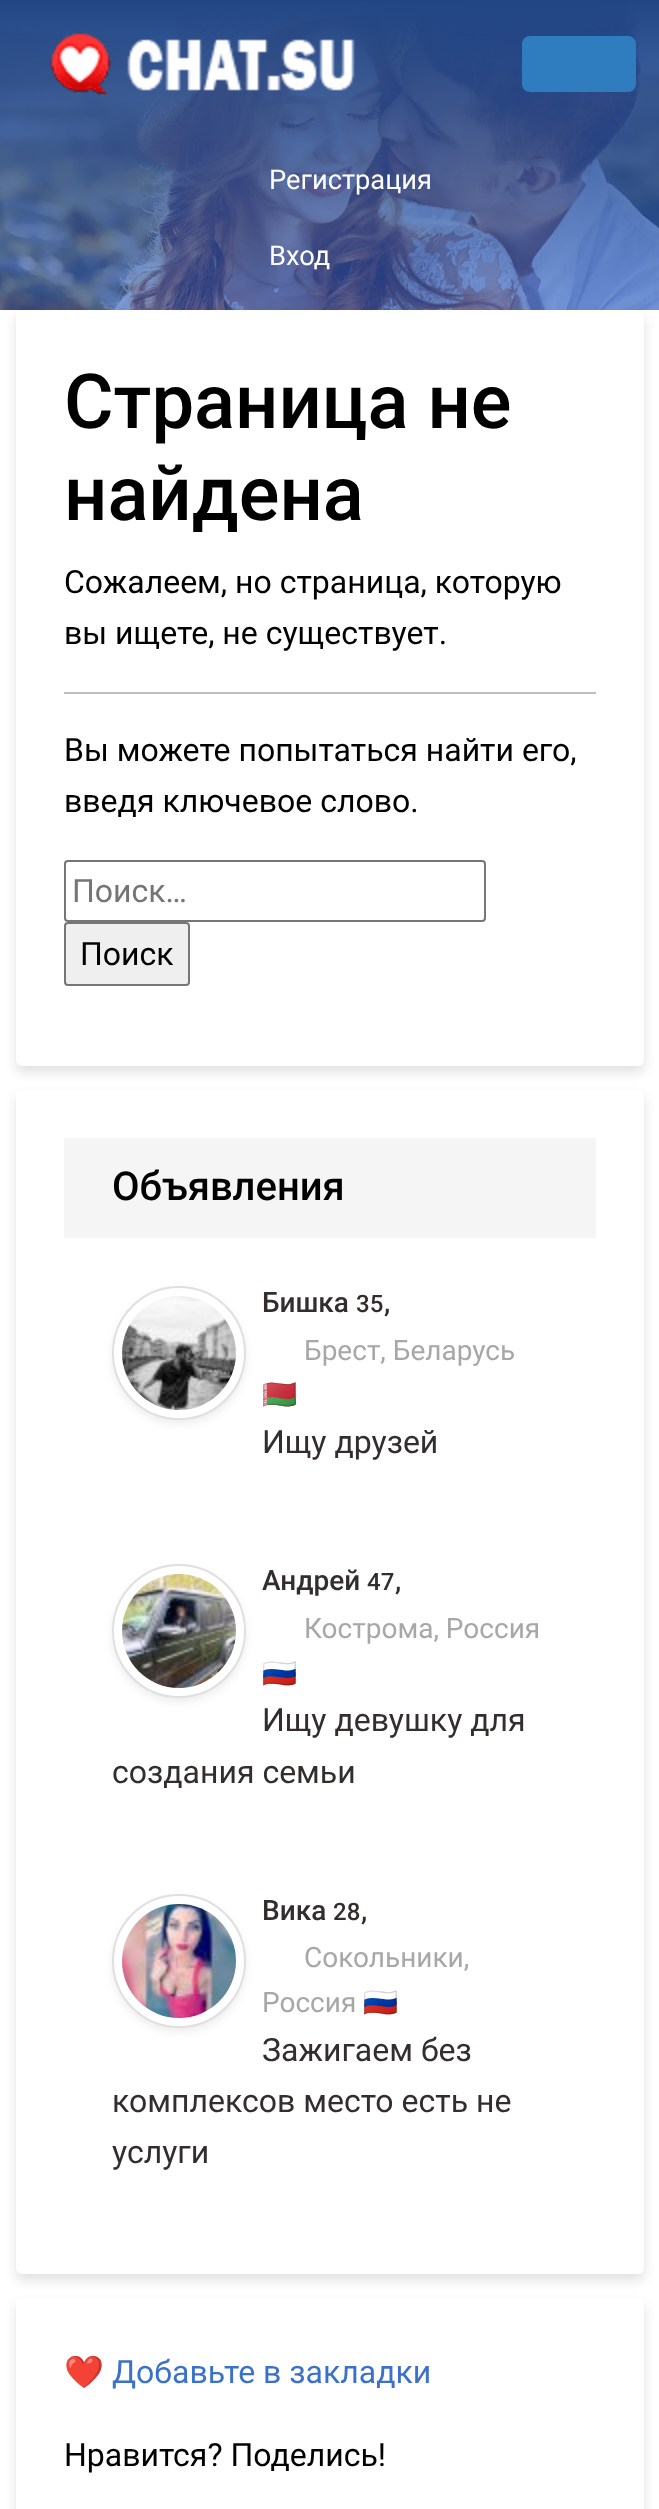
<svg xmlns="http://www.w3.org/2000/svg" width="659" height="2509">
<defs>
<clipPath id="clip1"><path d="M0 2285h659v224h-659zm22 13h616c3.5 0 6 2.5 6 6v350c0 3.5-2.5 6-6 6h-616c-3.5 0-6-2.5-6-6v-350c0-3.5 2.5-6 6-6z" clip-rule="evenodd"/></clipPath>
</defs>
<rect width="100%" height="100%" fill="#fff"/>
<image x="0" y="0" width="659" height="310" href="media/1.png"/>
<image x="49" y="31" width="306" height="66" href="media/2.png"/>
<rect x="522" y="36" width="114" height="56" rx="8" fill="#2f7cbf"/>
<text x="269" y="189" style="font-family:Roboto;font-size:27.25px;fill:#fff">Регистрация</text>
<text x="269" y="265" style="font-family:Roboto;font-size:27.25px;fill:#fff">Вход</text>
<rect x="16" y="316" width="628" height="756" rx="6" fill="#0000001f" filter="blur(6px)"/>
<rect x="16" y="310" width="628" height="756" rx="6" fill="#fff"/>
<text x="64" y="428" style="font-family:Roboto;font-size:76px;font-weight:500;fill:#000">Страница не</text>
<text x="64" y="520" style="font-family:Roboto;font-size:76px;font-weight:500;fill:#000">найдена</text>
<text x="64" y="593" style="font-family:Roboto;font-size:32px;fill:#000">Сожалеем, но страница, которую</text>
<text x="64" y="644" style="font-family:Roboto;font-size:32px;fill:#000">вы ищете, не существует.</text>
<rect x="64" y="692" width="532" height="2" fill="#bfbfbf"/>
<text x="64" y="761" style="font-family:Roboto;font-size:32px;fill:#000">Вы можете попытаться найти его,</text>
<text x="64" y="812" style="font-family:Roboto;font-size:32px;fill:#000">введя ключевое слово.</text>
<rect x="65" y="861" width="420" height="60" rx="3" fill="none" stroke="#767676" stroke-width="2"/>
<text x="72" y="902" style="font-family:Roboto;font-size:32px;fill:#757575">Поиск…</text>
<rect x="65" y="923" width="124" height="62" rx="3" fill="#efefef" stroke="#767676" stroke-width="2"/>
<text x="80" y="965" style="font-family:Roboto;font-size:32px;fill:#000">Поиск</text>
<rect x="16" y="1096" width="628" height="1184" rx="6" fill="#0000001f" filter="blur(6px)"/>
<rect x="16" y="1090" width="628" height="1184" rx="6" fill="#fff"/>
<rect x="64" y="1138" width="532" height="100" fill="#f5f5f5"/>
<text x="112" y="1200" style="font-family:Roboto;font-size:40px;font-weight:500;fill:#000">Объявления</text>
<rect x="112" y="1290" width="134" height="134" rx="67" fill="#00000012" filter="blur(4px)"/>
<circle cx="179" cy="1353" r="66" fill="#fff" stroke="#e0e0e0" stroke-width="2"/>
<image x="122" y="1296" width="114" height="114" href="media/3.png"/>
<text x="262" y="1312" style="font-family:Roboto;font-size:28px;font-weight:500;fill:#332d2d">Бишка</text>
<text x="356" y="1312" style="font-family:Roboto;font-size:24px;font-weight:500;fill:#332d2d">35</text>
<text x="384" y="1312" style="font-family:Roboto;font-size:28px;font-weight:500;fill:#332d2d">,</text>
<text x="304" y="1360" style="font-family:Roboto;font-size:28px;fill:#a7a7a7">Брест, Беларусь</text>
<text x="262" y="1404" style="font-family:Noto Color Emoji;font-size:28px;fill:#a7a7a7">🇧🇾</text>
<text x="262" y="1453" style="font-family:Roboto;font-size:32px;fill:#332d2d">Ищу друзей</text>
<rect x="112" y="1568" width="134" height="134" rx="67" fill="#00000012" filter="blur(4px)"/>
<circle cx="179" cy="1631" r="66" fill="#fff" stroke="#e0e0e0" stroke-width="2"/>
<image x="122" y="1574" width="114" height="114" href="media/4.png"/>
<text x="262" y="1590" style="font-family:Roboto;font-size:28px;font-weight:500;fill:#332d2d">Андрей</text>
<text x="367" y="1590" style="font-family:Roboto;font-size:24px;font-weight:500;fill:#332d2d">47</text>
<text x="395" y="1590" style="font-family:Roboto;font-size:28px;font-weight:500;fill:#332d2d">,</text>
<text x="304" y="1638" style="font-family:Roboto;font-size:28px;fill:#a7a7a7">Кострома, Россия</text>
<text x="262" y="1683" style="font-family:Noto Color Emoji;font-size:28px;fill:#a7a7a7">🇷🇺</text>
<text x="262" y="1731" style="font-family:Roboto;font-size:32px;fill:#332d2d">Ищу девушку для</text>
<text x="112" y="1783" style="font-family:Roboto;font-size:32px;fill:#332d2d">создания семьи</text>
<rect x="112" y="1898" width="134" height="134" rx="67" fill="#00000012" filter="blur(4px)"/>
<circle cx="179" cy="1961" r="66" fill="#fff" stroke="#e0e0e0" stroke-width="2"/>
<image x="122" y="1904" width="114" height="114" href="media/5.png"/>
<text x="262" y="1920" style="font-family:Roboto;font-size:28px;font-weight:500;fill:#332d2d">Вика</text>
<text x="333" y="1920" style="font-family:Roboto;font-size:24px;font-weight:500;fill:#332d2d">28</text>
<text x="361" y="1920" style="font-family:Roboto;font-size:28px;font-weight:500;fill:#332d2d">,</text>
<text x="304" y="1967" style="font-family:Roboto;font-size:28px;fill:#a7a7a7">Сокольники,</text>
<text x="262" y="2012" style="font-family:Roboto;font-size:28px;fill:#a7a7a7">Россия</text>
<text x="363" y="2012" style="font-family:Noto Color Emoji;font-size:28px;fill:#a7a7a7">🇷🇺</text>
<text x="262" y="2061" style="font-family:Roboto;font-size:32px;fill:#332d2d">Зажигаем без</text>
<text x="112" y="2112" style="font-family:Roboto;font-size:32px;fill:#332d2d">комплексов место есть не</text>
<text x="112" y="2163" style="font-family:Roboto;font-size:32px;fill:#332d2d">услуги</text>
<g clip-path="url(#clip1)">
<rect x="16" y="2304" width="628" height="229" rx="6" fill="#0000001f" filter="blur(6px)"/>
</g>
<text x="64" y="2383" style="font-family:Noto Color Emoji;font-size:32px;fill:#000">❤️</text>
<text x="112" y="2383" style="font-family:Roboto;font-size:32px;fill:#3b71ca">Добавьте в закладки</text>
<text x="64" y="2466" style="font-family:Roboto;font-size:32px;fill:#000">Нравится? Поделись!</text>
</svg>
